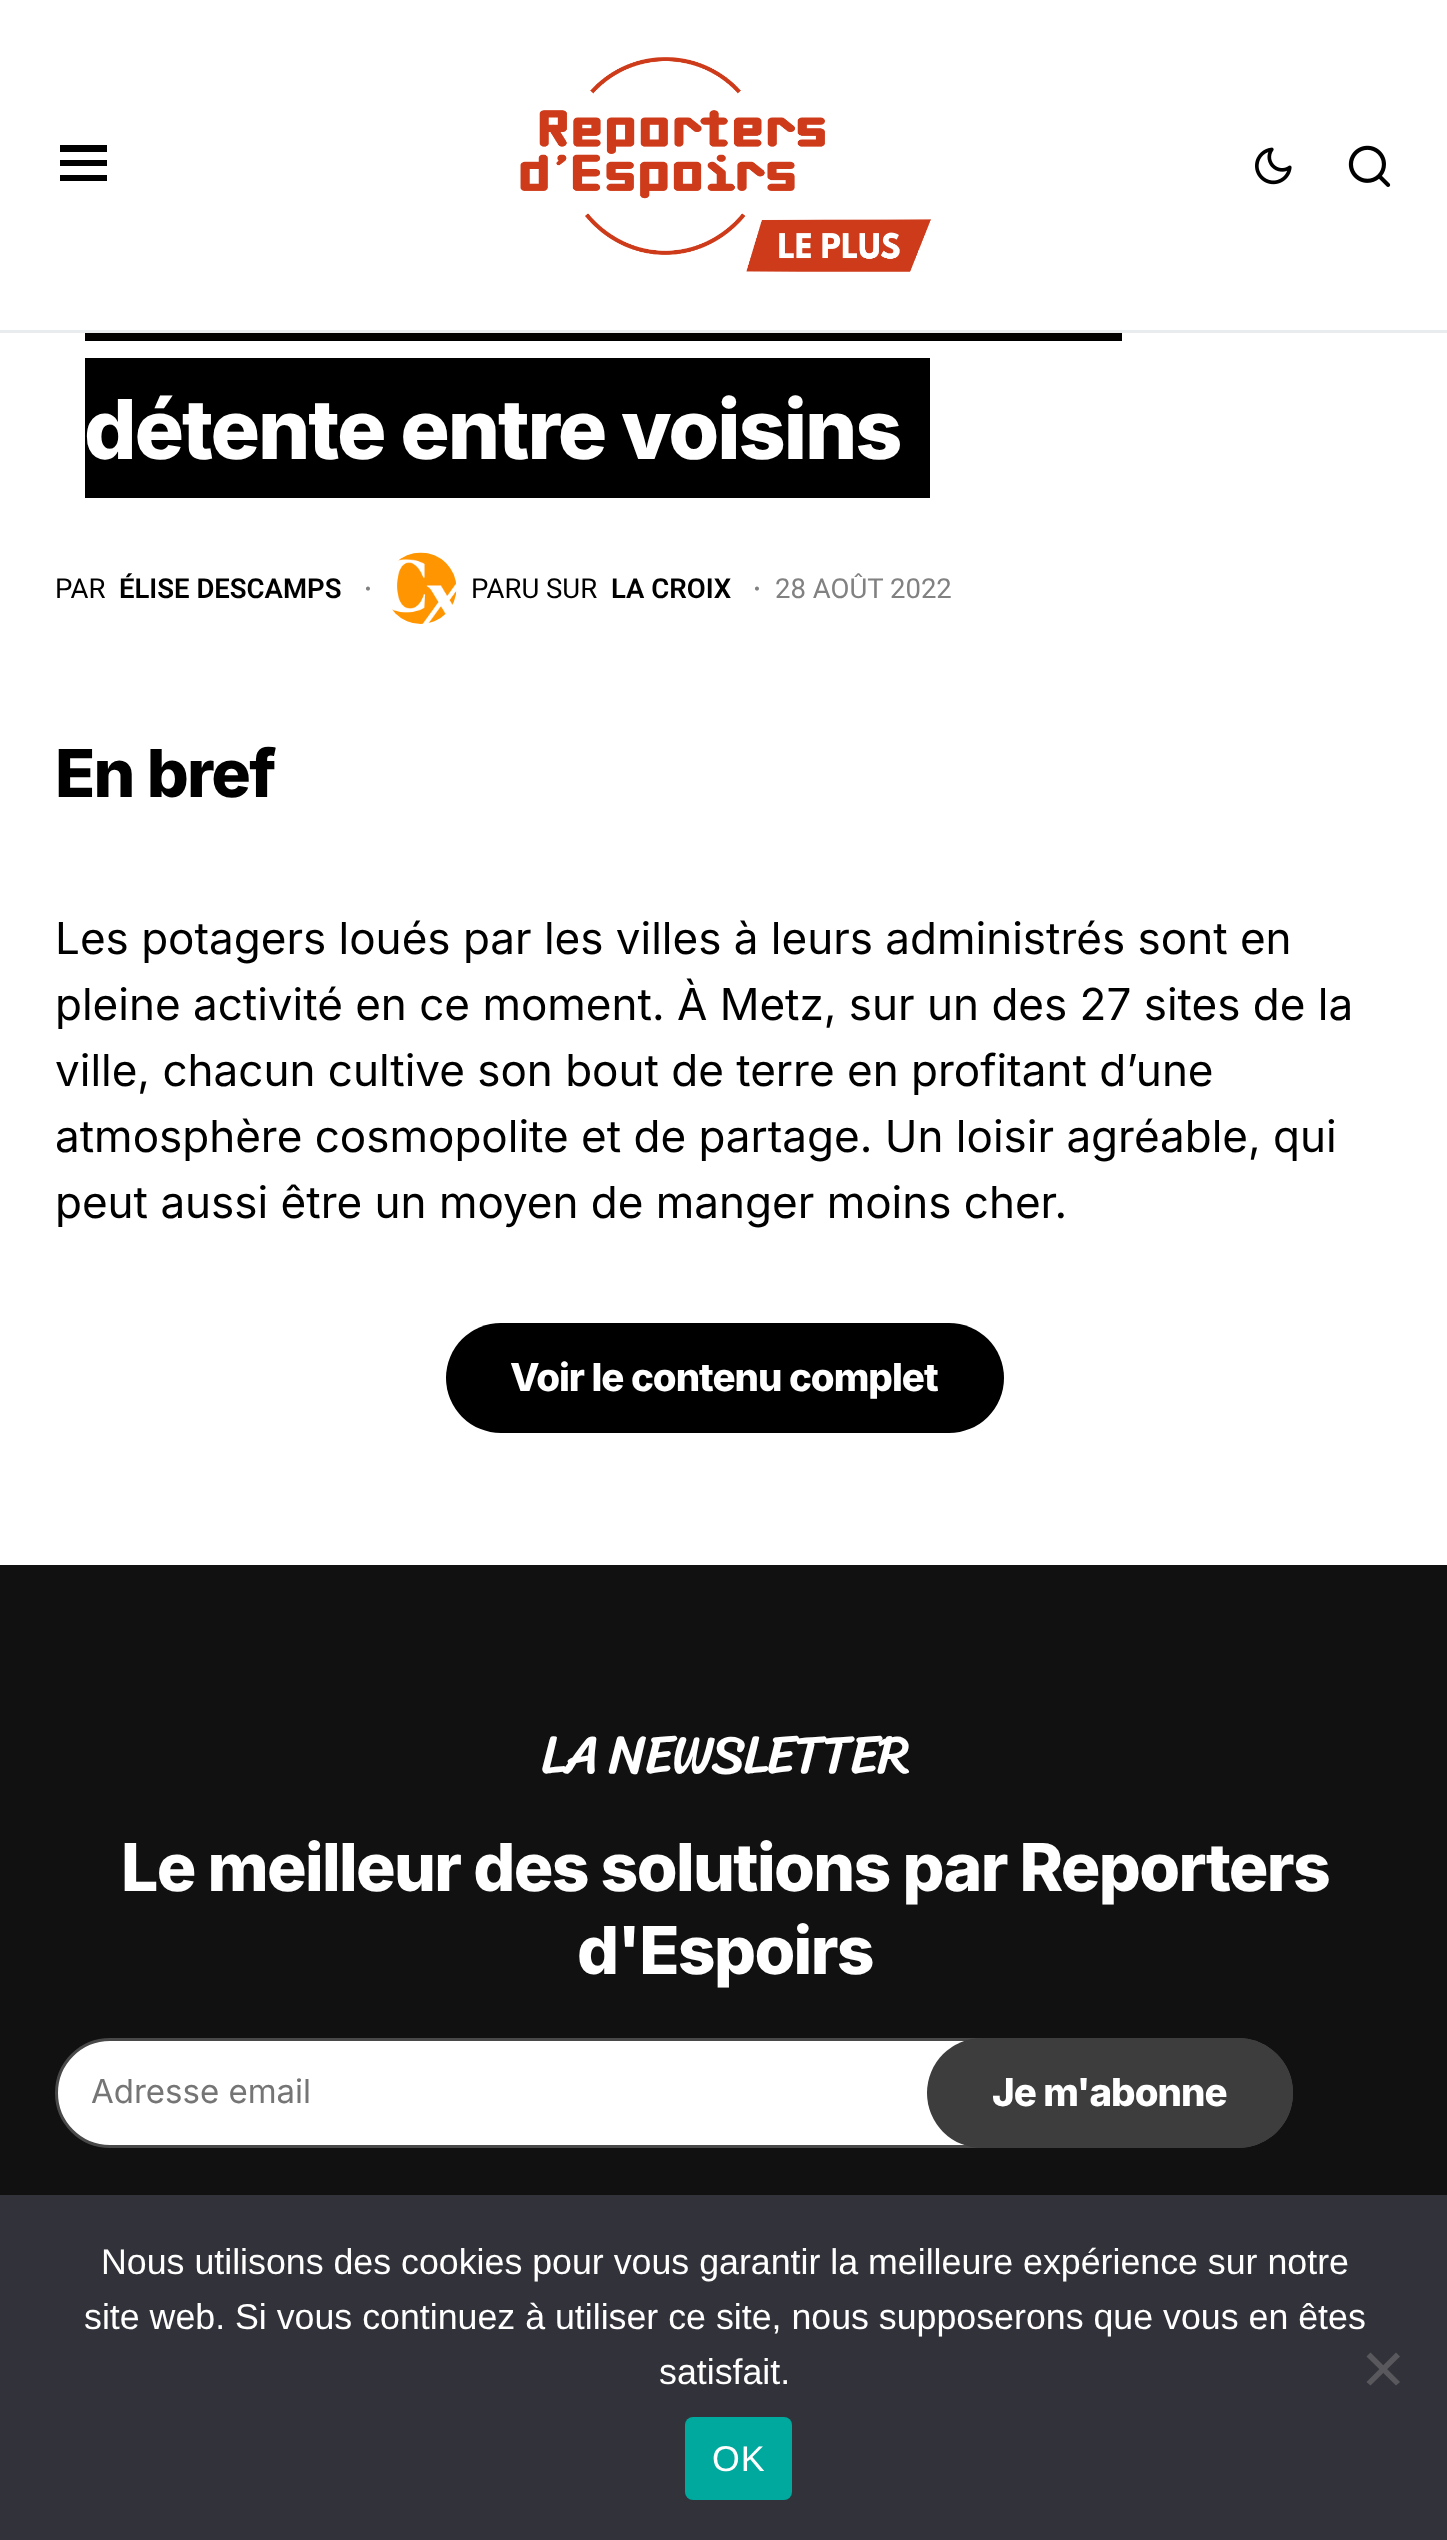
<svg xmlns="http://www.w3.org/2000/svg" width="1447" height="2540">
<rect width="100%" height="100%" fill="#fff"/>
<rect y="330" width="1447" height="3" fill="#e9ecef"/>
<path d="M60 145h47v7h-47zm0 15h47v6h-47zm0 15h47v6h-47z" fill="#000"/>
<image x="520" y="57" width="411" height="215" href="media/1.png"/>
<image x="1255" y="147" width="37" height="38" href="media/2.png"/>
<image x="1348" y="145" width="43" height="42" href="media/3.png"/>
<rect x="85" y="358" width="845" height="140" fill="#000"/>
<text x="84" y="459" style="font-family:Inter;font-size:82.5px;font-weight:800;letter-spacing:-2.1px;fill:#fff">détente entre voisins</text>
<rect x="85" y="333" width="1037" height="8" fill="#000"/>
<text x="55" y="598" style="font-family:Roboto;font-size:27.5px;fill:#000">PAR</text>
<text x="119" y="598" style="font-family:Roboto;font-size:27.5px;font-weight:600;fill:#000">ÉLISE DESCAMPS</text>
<text x="364" y="598" style="font-family:Roboto;font-size:27.5px;font-weight:600;fill:#818181">·</text>
<image x="391" y="552" width="66" height="72" href="media/4.png"/>
<text x="471" y="598" style="font-family:Roboto;font-size:27.5px;fill:#000">PARU SUR</text>
<text x="611" y="598" style="font-family:Roboto;font-size:27.5px;font-weight:600;fill:#000">LA CROIX</text>
<text x="753" y="598" style="font-family:Roboto;font-size:27.5px;font-weight:600;fill:#818181">·</text>
<text x="775" y="598" style="font-family:Roboto;font-size:27.5px;fill:#818181">28 AOÛT 2022</text>
<text x="55" y="797" style="font-family:Inter;font-size:66px;font-weight:800;letter-spacing:-1.65px;fill:#000">En bref</text>
<text x="55" y="954" style="font-family:Inter;font-size:44px;fill:#000">Les potagers loués par les villes à leurs administrés sont en</text>
<text x="55" y="1020" style="font-family:Inter;font-size:44px;fill:#000">pleine activité en ce moment. À Metz, sur un des 27 sites de la</text>
<text x="55" y="1086" style="font-family:Inter;font-size:44px;fill:#000">ville, chacun cultive son bout de terre en profitant d’une</text>
<text x="55" y="1152" style="font-family:Inter;font-size:44px;fill:#000">atmosphère cosmopolite et de partage. Un loisir agréable, qui</text>
<text x="55" y="1218" style="font-family:Inter;font-size:44px;fill:#000">peut aussi être un moyen de manger moins cher.</text>
<rect x="446" y="1323" width="558" height="110" rx="55" fill="#000"/>
<text x="510" y="1391" style="font-family:Inter;font-size:38.5px;font-weight:800;letter-spacing:-1px;fill:#fff">Voir le contenu complet</text>
<rect y="1565" width="1447" height="630" fill="#111"/>
<text x="541" y="1773" style="font-family:Sriracha;font-size:55px;letter-spacing:-2.75px;fill:#fff">LA NEWSLETTER</text>
<text x="121" y="1891" style="font-family:Inter;font-size:66px;font-weight:800;letter-spacing:-1.65px;fill:#fff">Le meilleur des solutions par Reporters</text>
<text x="577" y="1974" style="font-family:Inter;font-size:66px;font-weight:800;letter-spacing:-1.65px;fill:#fff">d'Espoirs</text>
<rect x="56.5" y="2039.5" width="1235" height="107" rx="53.5" fill="#fff" stroke="#494949" stroke-width="3"/>
<text x="91" y="2103" style="font-family:Inter;font-size:33px;fill:#757575">Adresse email</text>
<rect x="927" y="2038" width="366" height="110" rx="55" fill="#3d3d3d"/>
<text x="992" y="2106" style="font-family:Inter;font-size:38.5px;font-weight:800;letter-spacing:-1px;fill:#fff">Je m'abonne</text>
<rect y="2195" width="1447" height="345" fill="#32323a"/>
<text x="101" y="2274" style="font-family:Liberation Sans;font-size:35.75px;fill:#fff">Nous utilisons des cookies pour vous garantir la meilleure expérience sur notre</text>
<text x="84" y="2329" style="font-family:Liberation Sans;font-size:35.75px;fill:#fff">site web. Si vous continuez à utiliser ce site, nous supposerons que vous en êtes</text>
<text x="659" y="2384" style="font-family:Liberation Sans;font-size:35.75px;fill:#fff">satisfait.</text>
<path d="M1396 2352.5l4 4l-29.5 29l-4-3.5z" fill="#59595d"/>
<path d="M1366.5 2356.5l4-4l29.5 29.5l-4 3.5z" fill="#59595d"/>
<rect x="685" y="2417" width="107" height="83" rx="8" fill="#00a99d"/>
<text x="712" y="2471" style="font-family:Liberation Sans;font-size:35.75px;letter-spacing:1px;fill:#fff">OK</text>
</svg>
